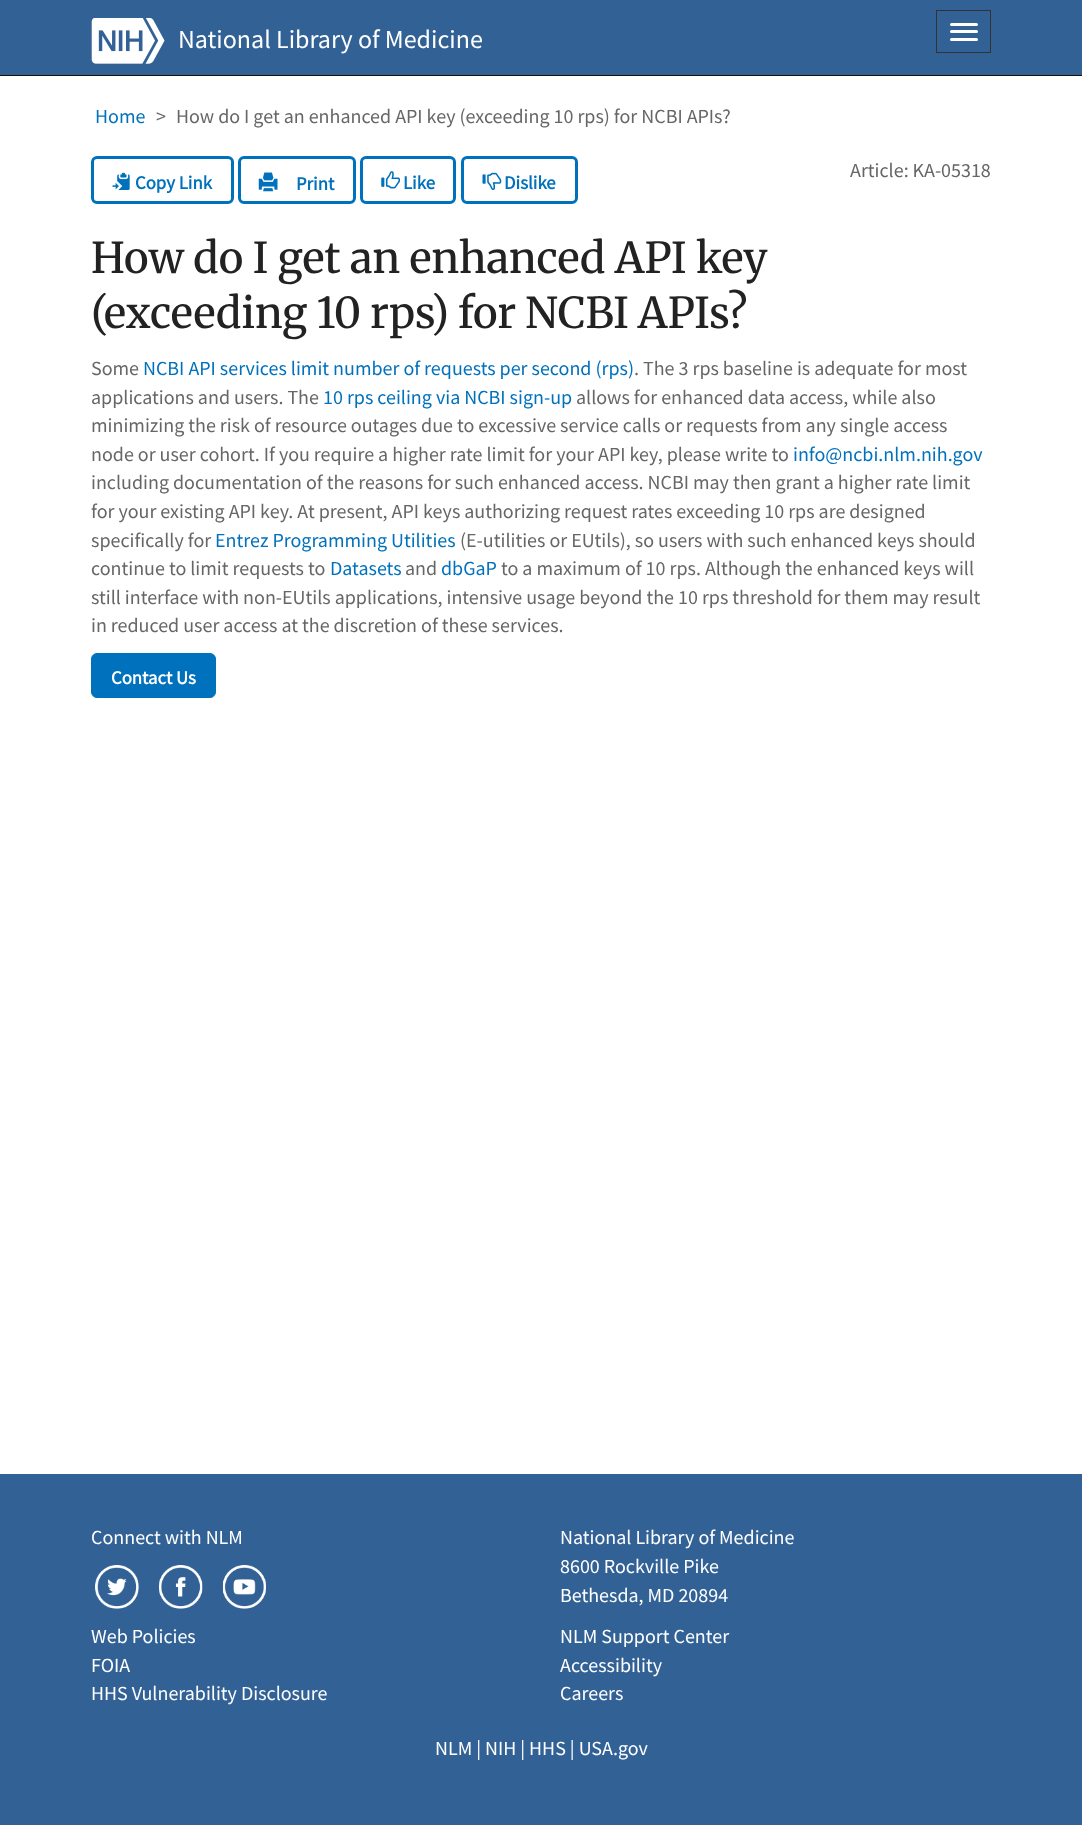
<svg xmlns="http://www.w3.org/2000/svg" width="1082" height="1825">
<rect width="100%" height="100%" fill="#fff"/>
<rect width="1082" height="75" fill="#326295"/>
<rect y="75" width="1082" height="1" fill="#101010"/>
<image x="91" y="18" width="74" height="46" href="media/1.png"/>
<text x="178" y="48" style="font-family:Source Sans Pro;font-size:26px;fill:#fff">National Library of Medicine</text>
<rect x="936.5" y="10.5" width="54" height="42" fill="none" stroke="#333"/>
<rect x="950" y="23" width="28" height="3" rx="1.5" fill="#fff"/>
<rect x="950" y="30" width="28" height="3" rx="1.5" fill="#fff"/>
<rect x="950" y="38" width="28" height="3" rx="1.5" fill="#fff"/>
<text x="95" y="123" style="font-family:Source Sans Pro;font-size:20px;fill:#0071bc">Home</text>
<text x="156" y="123" style="font-family:Source Sans Pro;font-size:20px;fill:#666">&gt;</text>
<text x="176" y="123" style="font-family:Source Sans Pro;font-size:20px;fill:#666">How do I get an enhanced API key (exceeding 10 rps) for NCBI APIs?</text>
<text x="850" y="177" style="font-family:Source Sans Pro;font-size:20px;fill:#666">Article: KA-05318</text>
<rect x="92.5" y="157.5" width="140" height="45" rx="4.5" fill="none" stroke="#0071bc" stroke-width="3"/>
<image x="112" y="172" width="18" height="18" href="media/2.png"/>
<text x="135" y="189" style="font-family:Source Sans Pro;font-size:18.75px;font-weight:bold;fill:#0071bc">Copy Link</text>
<rect x="239.5" y="157.5" width="115" height="45" rx="4.5" fill="none" stroke="#0071bc" stroke-width="3"/>
<image x="258" y="172" width="20" height="20" href="media/3.png"/>
<text x="296" y="190" style="font-family:Source Sans Pro;font-size:18.75px;font-weight:bold;fill:#0071bc">Print</text>
<rect x="361.5" y="157.5" width="93" height="45" rx="4.5" fill="none" stroke="#0071bc" stroke-width="3"/>
<image x="381" y="171" width="19" height="18" href="media/4.png"/>
<text x="403" y="189" style="font-family:Source Sans Pro;font-size:18.75px;font-weight:bold;fill:#0071bc">Like</text>
<rect x="462.5" y="157.5" width="114" height="45" rx="4.5" fill="none" stroke="#0071bc" stroke-width="3"/>
<image x="482" y="172" width="20" height="18" href="media/5.png"/>
<text x="504" y="189" style="font-family:Source Sans Pro;font-size:18.75px;font-weight:bold;fill:#0071bc">Dislike</text>
<text x="91" y="273" word-spacing="-0.25" style="font-family:Merriweather;font-size:42.5px;font-weight:500;fill:#232222">How do I get an enhanced API key</text>
<text x="91" y="328" word-spacing="-0.5" style="font-family:Merriweather;font-size:42.5px;font-weight:500;fill:#232222">(exceeding 10 rps) for NCBI APIs?</text>
<text x="91" y="375" style="font-family:Source Sans Pro;font-size:20px;fill:#666">Some</text>
<text x="143" y="375" style="font-family:Source Sans Pro;font-size:20px;fill:#0071bc">NCBI API services limit number of requests per second (rps)</text>
<text x="634" y="375" style="font-family:Source Sans Pro;font-size:20px;fill:#666">. The 3 rps baseline is adequate for most</text>
<text x="91" y="404" style="font-family:Source Sans Pro;font-size:20px;fill:#666">applications and users. The</text>
<text x="323" y="404" style="font-family:Source Sans Pro;font-size:20px;fill:#0071bc">10 rps ceiling via NCBI sign-up</text>
<text x="576" y="404" style="font-family:Source Sans Pro;font-size:20px;fill:#666">allows for enhanced data access, while also</text>
<text x="91" y="432" style="font-family:Source Sans Pro;font-size:20px;fill:#666">minimizing the risk of resource outages due to excessive service calls or requests from any single access</text>
<text x="91" y="461" style="font-family:Source Sans Pro;font-size:20px;fill:#666">node or user cohort. If you require a higher rate limit for your API key, please write to</text>
<text x="793" y="461" style="font-family:Source Sans Pro;font-size:20px;fill:#0071bc">info@ncbi.nlm.nih.gov</text>
<text x="91" y="489" style="font-family:Source Sans Pro;font-size:20px;fill:#666">including documentation of the reasons for such enhanced access. NCBI may then grant a higher rate limit</text>
<text x="91" y="518" style="font-family:Source Sans Pro;font-size:20px;fill:#666">for your existing API key. At present, API keys authorizing request rates exceeding 10 rps are designed</text>
<text x="91" y="547" style="font-family:Source Sans Pro;font-size:20px;fill:#666">specifically for</text>
<text x="215" y="547" style="font-family:Source Sans Pro;font-size:20px;fill:#0071bc">Entrez Programming Utilities</text>
<text x="460" y="547" style="font-family:Source Sans Pro;font-size:20px;fill:#666">(E-utilities or EUtils), so users with such enhanced keys should</text>
<text x="91" y="575" style="font-family:Source Sans Pro;font-size:20px;fill:#666">continue to limit requests to</text>
<text x="330" y="575" style="font-family:Source Sans Pro;font-size:20px;fill:#0071bc">Datasets</text>
<text x="405" y="575" style="font-family:Source Sans Pro;font-size:20px;fill:#666">and</text>
<text x="441" y="575" style="font-family:Source Sans Pro;font-size:20px;fill:#0071bc">dbGaP</text>
<text x="501" y="575" style="font-family:Source Sans Pro;font-size:20px;fill:#666">to a maximum of 10 rps. Although the enhanced keys will</text>
<text x="91" y="604" style="font-family:Source Sans Pro;font-size:20px;fill:#666">still interface with non-EUtils applications, intensive usage beyond the 10 rps threshold for them may result</text>
<text x="91" y="632" style="font-family:Source Sans Pro;font-size:20px;fill:#666">in reduced user access at the discretion of these services.</text>
<rect x="91.5" y="653.5" width="124" height="44" rx="5.5" fill="#0071bc" stroke="#0071bc"/>
<text x="111" y="684" style="font-family:Source Sans Pro;font-size:18.75px;font-weight:bold;fill:#fff">Contact Us</text>
<rect y="1474" width="1082" height="351" fill="#326295"/>
<text x="91" y="1544" style="font-family:Source Sans Pro;font-size:20px;fill:#fff">Connect with NLM</text>
<image x="95" y="1565" width="44" height="44" href="media/6.png"/>
<image x="159" y="1565" width="44" height="44" href="media/7.png"/>
<image x="223" y="1565" width="43" height="44" href="media/8.png"/>
<text x="560" y="1544" style="font-family:Source Sans Pro;font-size:20px;fill:#fff">National Library of Medicine</text>
<text x="560" y="1573" style="font-family:Source Sans Pro;font-size:20px;fill:#fff">8600 Rockville Pike</text>
<text x="560" y="1602" style="font-family:Source Sans Pro;font-size:20px;fill:#fff">Bethesda, MD 20894</text>
<text x="91" y="1643" style="font-family:Source Sans Pro;font-size:20px;fill:#fff">Web Policies</text>
<text x="91" y="1672" style="font-family:Source Sans Pro;font-size:20px;fill:#fff">FOIA</text>
<text x="91" y="1700" style="font-family:Source Sans Pro;font-size:20px;fill:#fff">HHS Vulnerability Disclosure</text>
<text x="560" y="1643" style="font-family:Source Sans Pro;font-size:20px;fill:#fff">NLM Support Center</text>
<text x="560" y="1672" style="font-family:Source Sans Pro;font-size:20px;fill:#fff">Accessibility</text>
<text x="560" y="1700" style="font-family:Source Sans Pro;font-size:20px;fill:#fff">Careers</text>
<text x="435" y="1755" style="font-family:Source Sans Pro;font-size:20px;fill:#fff">NLM | NIH | HHS | USA.gov</text>
</svg>
